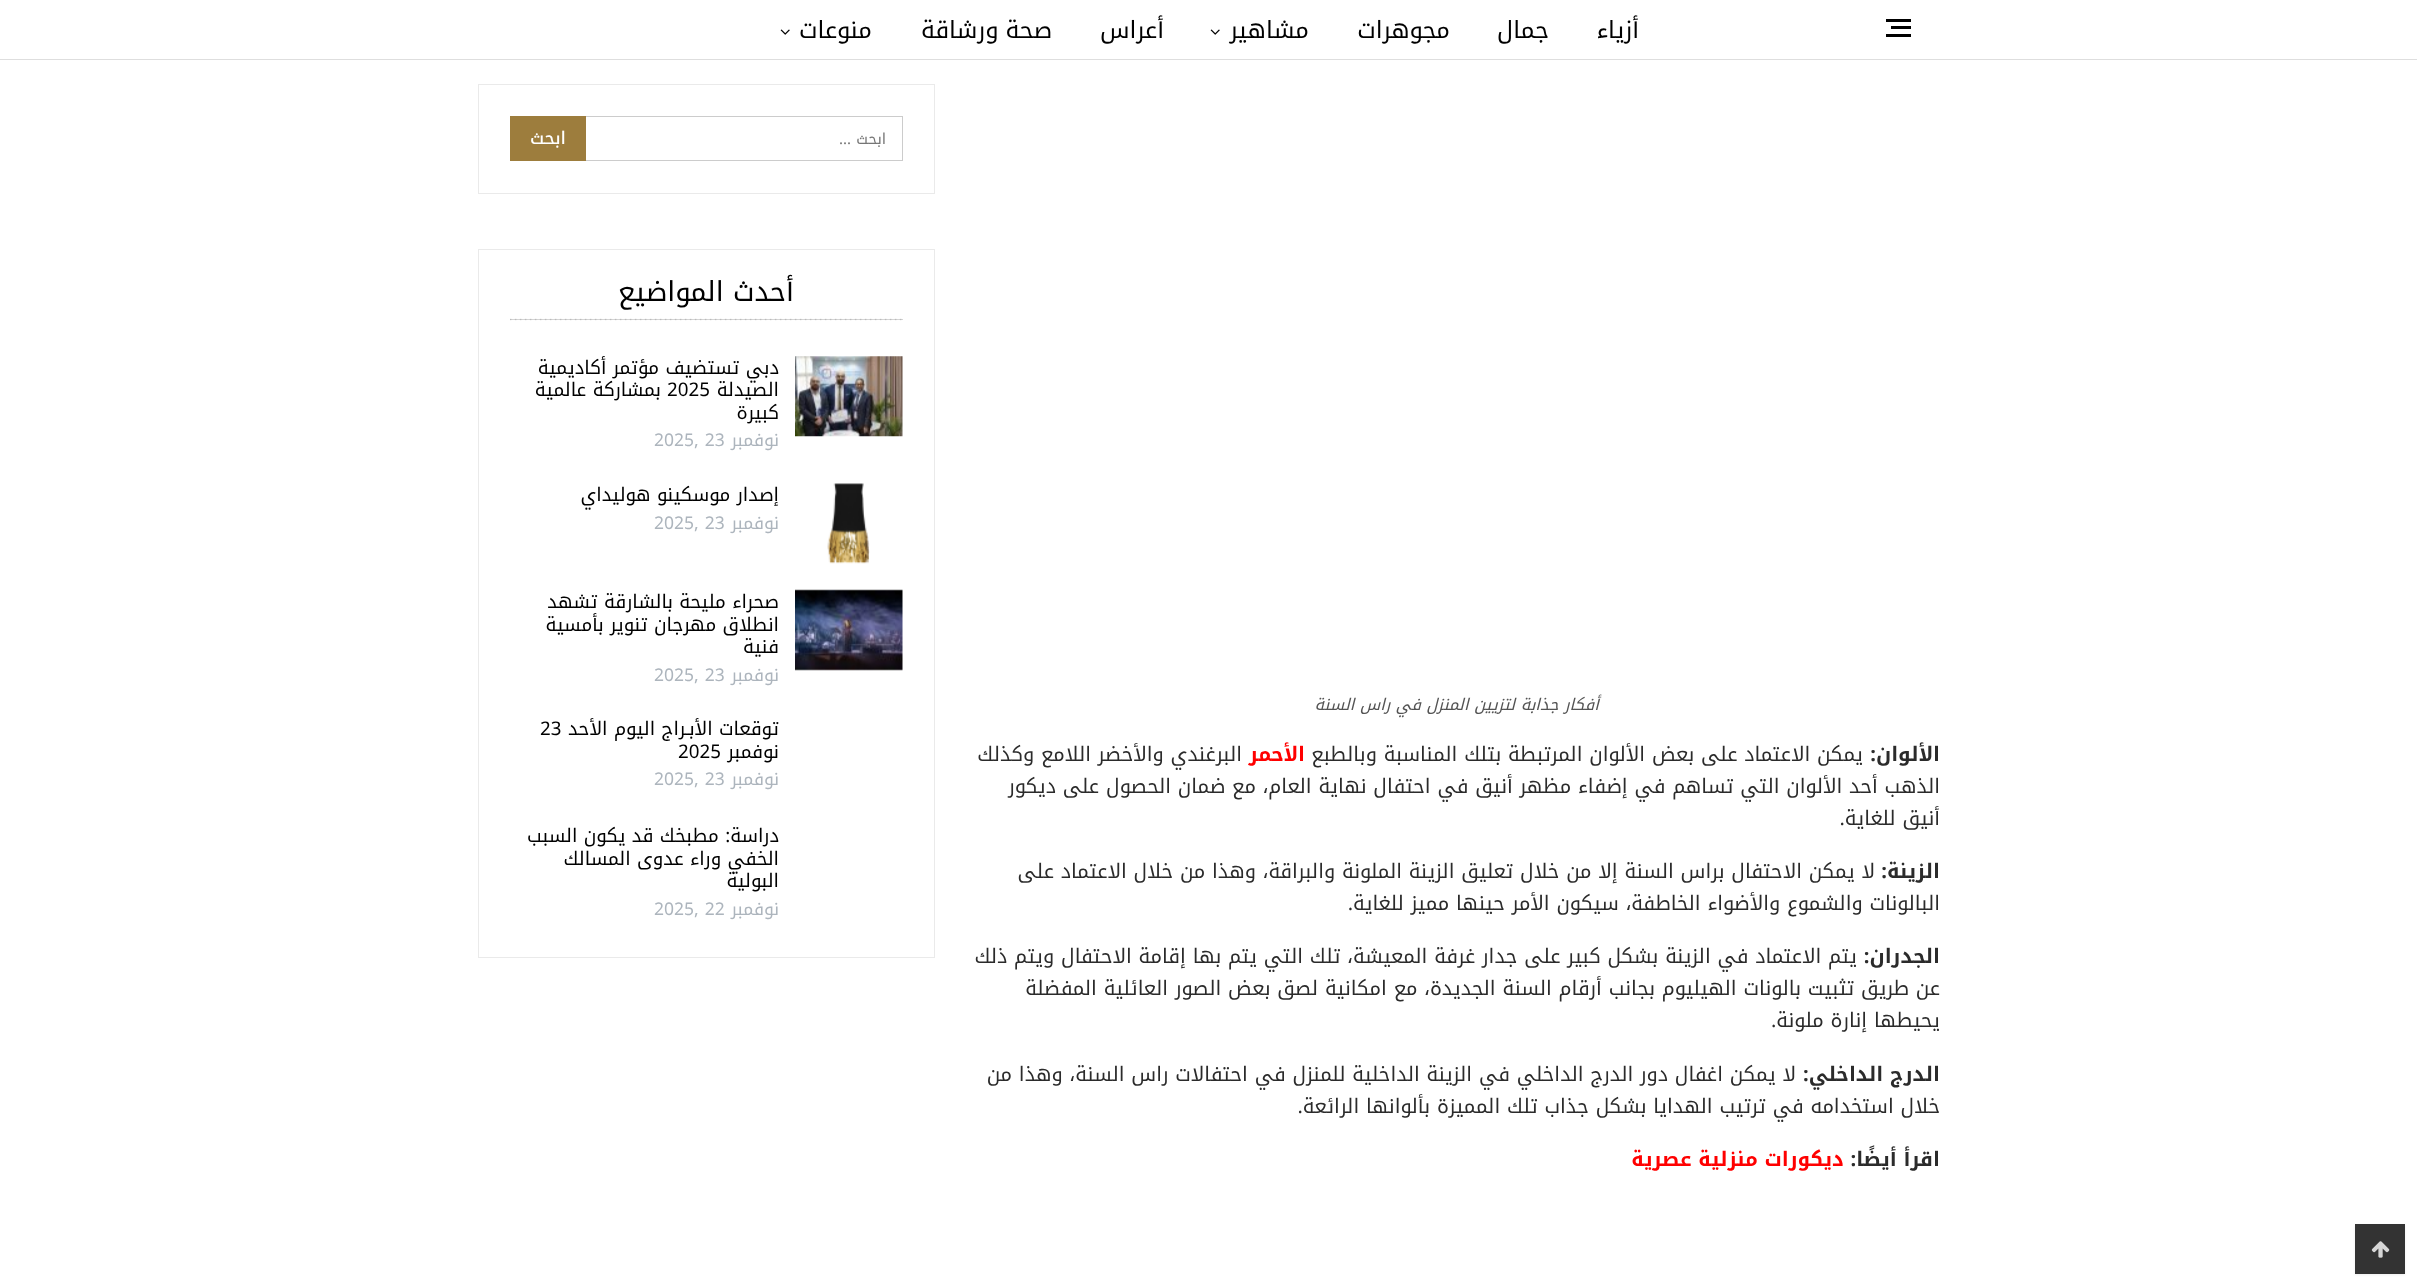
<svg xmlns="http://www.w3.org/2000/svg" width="2417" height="1283">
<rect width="100%" height="100%" fill="#fff"/>
<rect y="59" width="2417" height="1" fill="#dedede"/>
<rect x="1891" y="26" width="20" height="3" fill="#000"/>
<rect x="1886" y="19" width="25" height="3" fill="#000"/>
<rect x="1886" y="34" width="25" height="3" fill="#000"/>
<text x="1639" y="38" style="font-family:Noto Kufi Arabic;font-size:23.75px;letter-spacing:0.25px;direction:rtl;fill:#000">أزياء</text>
<text x="1549" y="38" style="font-family:Noto Kufi Arabic;font-size:23.75px;letter-spacing:0.25px;direction:rtl;fill:#000">جمال</text>
<text x="1450" y="38" style="font-family:Noto Kufi Arabic;font-size:23.75px;letter-spacing:0.25px;direction:rtl;fill:#000">مجوهرات</text>
<text x="1309" y="38" style="font-family:Noto Kufi Arabic;font-size:23.75px;letter-spacing:0.25px;direction:rtl;fill:#000">مشاهير</text>
<image x="1210" y="29" width="10" height="6" href="media/1.png"/>
<text x="1164" y="38" style="font-family:Noto Kufi Arabic;font-size:23.75px;letter-spacing:0.25px;direction:rtl;fill:#000">أعراس</text>
<text x="1052" y="38" word-spacing="-1" style="font-family:Noto Kufi Arabic;font-size:23.75px;letter-spacing:0.25px;direction:rtl;fill:#000">صحة ورشاقة</text>
<text x="872" y="38" style="font-family:Noto Kufi Arabic;font-size:23.75px;letter-spacing:0.25px;direction:rtl;fill:#000">منوعات</text>
<image x="780" y="29" width="10" height="6" href="media/1.png"/>
<text x="1599" y="710" style="font-family:Noto Kufi Arabic;font-size:16.25px;font-style:italic;direction:rtl;fill:#545454">أفكار جذابة لتزيين المنزل في راس السنة</text>
<text x="1940" y="761" style="font-family:Noto Kufi Arabic;font-size:20px;font-weight:bold;direction:rtl;fill:#2b2b2b">الألوان:</text>
<text x="1863" y="761" style="font-family:Noto Kufi Arabic;font-size:20px;direction:rtl;fill:#2b2b2b">يمكن الاعتماد على بعض الألوان المرتبطة بتلك المناسبة وبالطبع</text>
<text x="1305" y="761" style="font-family:Noto Kufi Arabic;font-size:20px;font-weight:bold;direction:rtl;fill:#f00">الأحمر</text>
<text x="1242" y="761" style="font-family:Noto Kufi Arabic;font-size:20px;direction:rtl;fill:#2b2b2b">البرغندي والأخضر اللامع وكذلك</text>
<text x="1940" y="793" style="font-family:Noto Kufi Arabic;font-size:20px;direction:rtl;fill:#2b2b2b">الذهب أحد الألوان التي تساهم في إضفاء مظهر أنيق في احتفال نهاية العام، مع ضمان الحصول على ديكور</text>
<text x="1940" y="825" style="font-family:Noto Kufi Arabic;font-size:20px;direction:rtl;fill:#2b2b2b">أنيق للغاية.</text>
<text x="1940" y="878" style="font-family:Noto Kufi Arabic;font-size:20px;font-weight:bold;direction:rtl;fill:#2b2b2b">الزينة:</text>
<text x="1875" y="878" style="font-family:Noto Kufi Arabic;font-size:20px;direction:rtl;fill:#2b2b2b">لا يمكن الاحتفال براس السنة إلا من خلال تعليق الزينة الملونة والبراقة، وهذا من خلال الاعتماد على</text>
<text x="1940" y="910" style="font-family:Noto Kufi Arabic;font-size:20px;direction:rtl;fill:#2b2b2b">البالونات والشموع والأضواء الخاطفة، سيكون الأمر حينها مميز للغاية.</text>
<text x="1940" y="963" style="font-family:Noto Kufi Arabic;font-size:20px;font-weight:bold;direction:rtl;fill:#2b2b2b">الجدران:</text>
<text x="1857" y="963" style="font-family:Noto Kufi Arabic;font-size:20px;direction:rtl;fill:#2b2b2b">يتم الاعتماد في الزينة بشكل كبير على جدار غرفة المعيشة، تلك التي يتم بها إقامة الاحتفال ويتم ذلك</text>
<text x="1940" y="995" style="font-family:Noto Kufi Arabic;font-size:20px;direction:rtl;fill:#2b2b2b">عن طريق تثبيت بالونات الهيليوم بجانب أرقام السنة الجديدة، مع امكانية لصق بعض الصور العائلية المفضلة</text>
<text x="1940" y="1027" style="font-family:Noto Kufi Arabic;font-size:20px;direction:rtl;fill:#2b2b2b">يحيطها إنارة ملونة.</text>
<text x="1940" y="1081" style="font-family:Noto Kufi Arabic;font-size:20px;font-weight:bold;direction:rtl;fill:#2b2b2b">الدرج الداخلي:</text>
<text x="1796" y="1081" style="font-family:Noto Kufi Arabic;font-size:20px;direction:rtl;fill:#2b2b2b">لا يمكن اغفال دور الدرج الداخلي في الزينة الداخلية للمنزل في احتفالات راس السنة، وهذا من</text>
<text x="1940" y="1113" style="font-family:Noto Kufi Arabic;font-size:20px;direction:rtl;fill:#2b2b2b">خلال استخدامه في ترتيب الهدايا بشكل جذاب تلك المميزة بألوانها الرائعة.</text>
<text x="1940" y="1166" style="font-family:Noto Kufi Arabic;font-size:20px;font-weight:bold;direction:rtl;fill:#2b2b2b">اقرأ أيضًا:</text>
<text x="1844" y="1166" style="font-family:Noto Kufi Arabic;font-size:20px;font-weight:bold;direction:rtl;fill:#f00">ديكورات منزلية عصرية</text>
<rect x="478.5" y="84.5" width="456" height="109" fill="none" stroke="#eaeaea"/>
<rect x="510.5" y="116.5" width="392" height="44" fill="none" stroke="#ccc"/>
<text x="886" y="144" style="font-family:Noto Kufi Arabic;font-size:15px;direction:rtl;fill:#757575">ابحث ...</text>
<rect x="510" y="116" width="76" height="45" fill="#9d7d3d"/>
<text x="566" y="144" style="font-family:Noto Kufi Arabic;font-size:17.5px;font-weight:500;direction:rtl;fill:#fff">ابحث</text>
<rect x="478.5" y="249.5" width="456" height="708" fill="none" stroke="#eaeaea"/>
<text x="794" y="301" style="font-family:Noto Kufi Arabic;font-size:27.5px;direction:rtl;fill:#000">أحدث المواضيع</text>
<image x="510" y="318" width="392" height="3" href="media/2.png"/>
<rect x="510" y="319" width="393" height="1" fill="#33333333"/>
<image x="795" y="356" width="108" height="81" href="media/3.png"/>
<text x="779" y="374" style="font-family:Noto Kufi Arabic;font-size:18.75px;direction:rtl;fill:#000">دبي تستضيف مؤتمر أكاديمية</text>
<text x="779" y="396" style="font-family:Noto Kufi Arabic;font-size:18.75px;direction:rtl;fill:#000">الصيدلة</text>
<text x="667" y="396" style="font-family:Noto Kufi Arabic;font-size:18.75px;fill:#000">2025</text>
<text x="661" y="396" style="font-family:Noto Kufi Arabic;font-size:18.75px;direction:rtl;fill:#000">بمشاركة عالمية</text>
<text x="779" y="419" style="font-family:Noto Kufi Arabic;font-size:18.75px;direction:rtl;fill:#000">كبيرة</text>
<text x="779" y="446" style="font-family:Noto Kufi Arabic;font-size:17.5px;direction:rtl;fill:#adb5bd">نوفمبر</text>
<text x="654" y="446" style="font-family:Noto Kufi Arabic;font-size:17.5px;fill:#adb5bd">2025, 23</text>
<image x="827" y="483" width="43" height="81" href="media/4.png"/>
<text x="779" y="501" style="font-family:Noto Kufi Arabic;font-size:18.75px;direction:rtl;fill:#000">إصدار موسكينو هوليداي</text>
<text x="779" y="529" style="font-family:Noto Kufi Arabic;font-size:17.5px;direction:rtl;fill:#adb5bd">نوفمبر</text>
<text x="654" y="529" style="font-family:Noto Kufi Arabic;font-size:17.5px;fill:#adb5bd">2025, 23</text>
<image x="795" y="589" width="108" height="82" href="media/5.png"/>
<text x="779" y="608" style="font-family:Noto Kufi Arabic;font-size:18.75px;direction:rtl;fill:#000">صحراء مليحة بالشارقة تشهد</text>
<text x="779" y="631" style="font-family:Noto Kufi Arabic;font-size:18.75px;direction:rtl;fill:#000">انطلاق مهرجان تنوير بأمسية</text>
<text x="779" y="653" style="font-family:Noto Kufi Arabic;font-size:18.75px;direction:rtl;fill:#000">فنية</text>
<text x="779" y="681" style="font-family:Noto Kufi Arabic;font-size:17.5px;direction:rtl;fill:#adb5bd">نوفمبر</text>
<text x="654" y="681" style="font-family:Noto Kufi Arabic;font-size:17.5px;fill:#adb5bd">2025, 23</text>
<text x="779" y="735" style="font-family:Noto Kufi Arabic;font-size:18.75px;direction:rtl;fill:#000">توقعات الأبـراج اليوم الأحد</text>
<text x="540" y="735" style="font-family:Noto Kufi Arabic;font-size:18.75px;fill:#000">23</text>
<text x="779" y="758" style="font-family:Noto Kufi Arabic;font-size:18.75px;direction:rtl;fill:#000">نوفمبر</text>
<text x="678" y="758" style="font-family:Noto Kufi Arabic;font-size:18.75px;fill:#000">2025</text>
<text x="779" y="785" style="font-family:Noto Kufi Arabic;font-size:17.5px;direction:rtl;fill:#adb5bd">نوفمبر</text>
<text x="654" y="785" style="font-family:Noto Kufi Arabic;font-size:17.5px;fill:#adb5bd">2025, 23</text>
<text x="779" y="842" style="font-family:Noto Kufi Arabic;font-size:18.75px;direction:rtl;fill:#000">دراسة: مطبخك قد يكون السبب</text>
<text x="779" y="865" style="font-family:Noto Kufi Arabic;font-size:18.75px;direction:rtl;fill:#000">الخفي وراء عدوى المسالك</text>
<text x="779" y="887" style="font-family:Noto Kufi Arabic;font-size:18.75px;direction:rtl;fill:#000">البولية</text>
<text x="779" y="915" style="font-family:Noto Kufi Arabic;font-size:17.5px;direction:rtl;fill:#adb5bd">نوفمبر</text>
<text x="654" y="915" style="font-family:Noto Kufi Arabic;font-size:17.5px;fill:#adb5bd">2025, 22</text>
<rect x="2355" y="1225" width="50" height="50" fill="#33333317" filter="blur(1px)"/>
<rect x="2355" y="1224" width="50" height="50" fill="#333"/>
<image x="2371" y="1241" width="19" height="17" href="media/6.png"/>
</svg>
